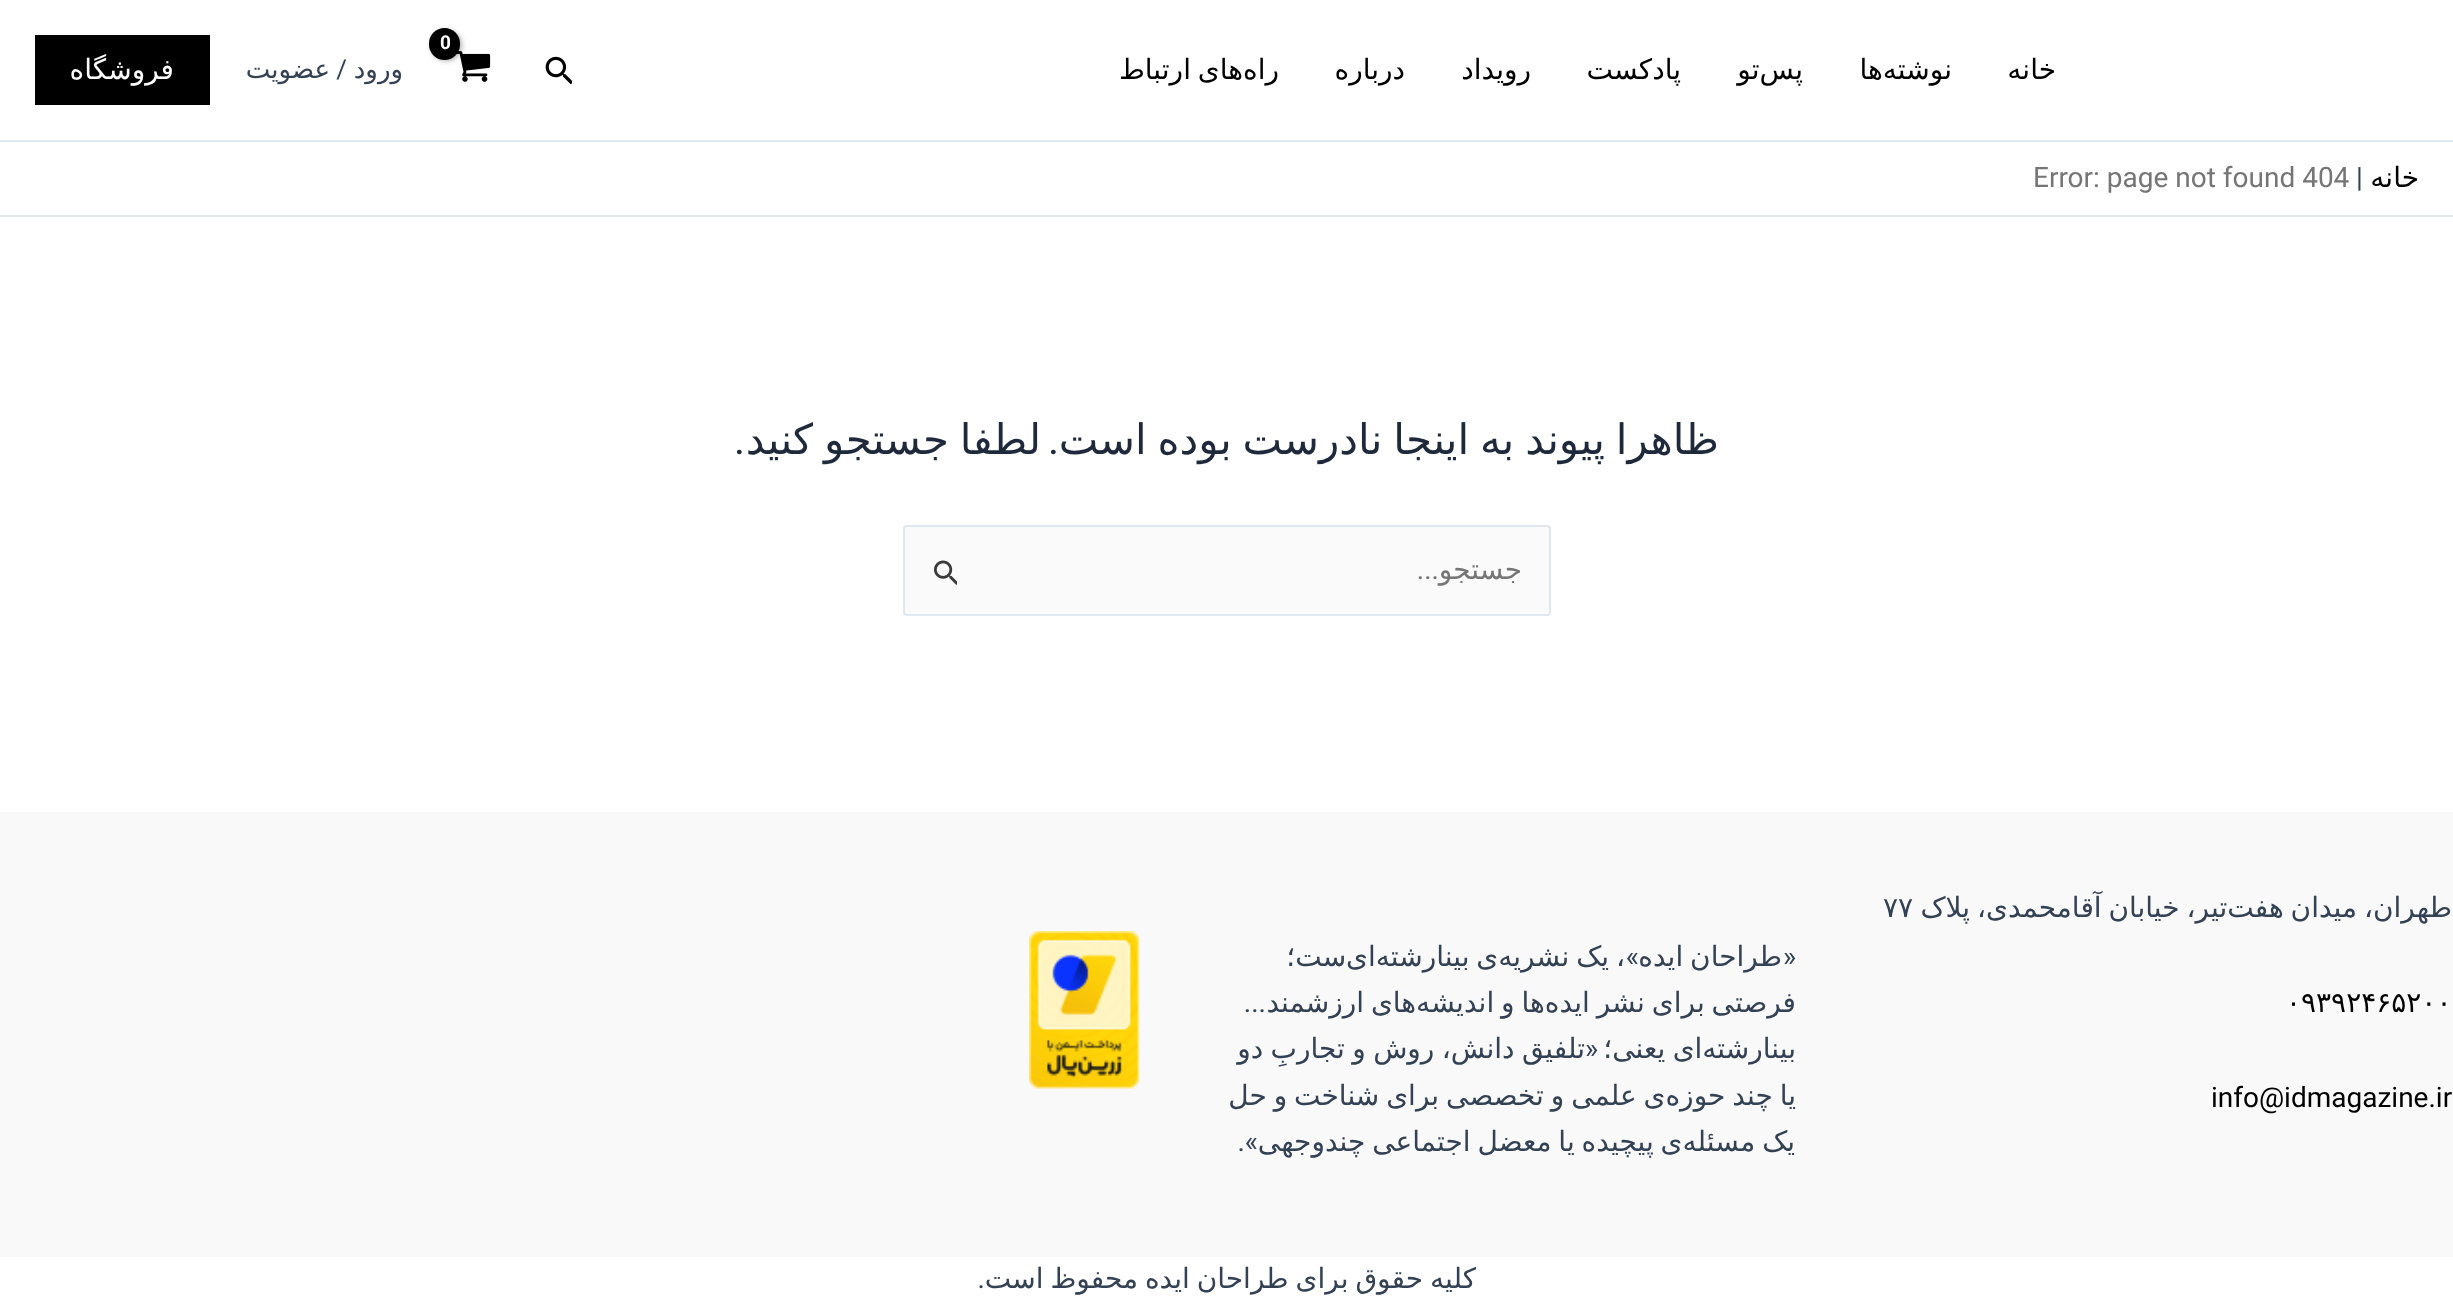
<svg xmlns="http://www.w3.org/2000/svg" width="2453" height="1309">
<rect width="100%" height="100%" fill="#fff"/>
<rect y="140" width="2453" height="2" fill="#e2e8f0"/>
<text x="2056" y="79" style="font-family:DejaVu Sans;font-size:28px;direction:rtl;fill:#000">خانه</text>
<text x="1952" y="79" style="font-family:DejaVu Sans;font-size:28px;direction:rtl;fill:#000">نوشته‌ها</text>
<text x="1803" y="79" style="font-family:DejaVu Sans;font-size:28px;direction:rtl;fill:#000">پس‌تو</text>
<text x="1681" y="79" style="font-family:DejaVu Sans;font-size:28px;direction:rtl;fill:#000">پادکست</text>
<text x="1531" y="79" style="font-family:DejaVu Sans;font-size:28px;direction:rtl;fill:#000">رویداد</text>
<text x="1405" y="79" style="font-family:DejaVu Sans;font-size:28px;direction:rtl;fill:#000">درباره</text>
<text x="1279" y="79" word-spacing="-2" style="font-family:DejaVu Sans;font-size:28px;direction:rtl;fill:#000">راه‌های ارتباط</text>
<image x="456" y="51" width="35" height="31" href="media/1.png"/>
<rect x="431" y="30" width="31" height="31" rx="15.5" fill="#0000004d" filter="blur(2.5px)"/>
<rect x="429" y="28" width="31" height="32" rx="15.5" fill="#000"/>
<text x="440" y="49" style="font-family:Roboto;font-size:19px;font-weight:bold;letter-spacing:-1px;fill:#fff">0</text>
<image x="545" y="56" width="27" height="29" href="media/2.png"/>
<text x="403" y="78" style="font-family:DejaVu Sans;font-size:26px;direction:rtl;fill:#334155">ورود</text>
<text x="347" y="78" style="font-family:Roboto;font-size:26px;direction:rtl;fill:#334155">/</text>
<text x="330" y="78" style="font-family:DejaVu Sans;font-size:26px;direction:rtl;fill:#334155">عضویت</text>
<rect x="35" y="35" width="175" height="70" fill="#000"/>
<text x="174" y="79" style="font-family:DejaVu Sans;font-size:28px;direction:rtl;fill:#fff">فروشگاه</text>
<rect y="215" width="2453" height="2" fill="#e2e8f0"/>
<text x="2419" y="187" style="font-family:DejaVu Sans;font-size:28px;direction:rtl;fill:#000">خانه</text>
<text x="2356" y="187" style="font-family:Roboto;font-size:28px;fill:#334155">|</text>
<text x="2033" y="187" style="font-family:Roboto;font-size:28px;fill:#757575">Error: page not found 404</text>
<text x="1719" y="454" word-spacing="-2.5" style="font-family:DejaVu Sans;font-size:42px;direction:rtl;fill:#1e293b">ظاهرا پیوند به اینجا نادرست بوده است</text>
<text x="1059" y="454" style="font-family:Roboto;font-size:42px;direction:rtl;fill:#1e293b">.</text>
<text x="1041" y="454" word-spacing="-2.5" style="font-family:DejaVu Sans;font-size:42px;direction:rtl;fill:#1e293b">لطفا جستجو کنید</text>
<text x="745" y="454" style="font-family:Roboto;font-size:42px;direction:rtl;fill:#1e293b">.</text>
<rect x="904" y="526" width="646" height="89" rx="3" fill="#fafafa" stroke="#e2e8f0" stroke-width="2"/>
<text x="1522" y="579" style="font-family:DejaVu Sans;font-size:28px;direction:rtl;fill:#757575">جستجو</text>
<text x="1439" y="579" style="font-family:Roboto;font-size:28px;direction:rtl;fill:#757575">...</text>
<image x="934" y="560" width="23" height="25" href="media/3.png"/>
<rect y="812" width="2453" height="445" fill="#f9f9f9"/>
<text x="2452" y="917" word-spacing="-2" style="font-family:DejaVu Sans;font-size:28px;direction:rtl;fill:#334155">طهران، میدان هفت‌تیر، خیابان آقامحمدی، پلاک</text>
<text x="1883" y="917" style="font-family:DejaVu Sans;font-size:28px;fill:#334155">۷۷</text>
<text x="2286" y="1012" style="font-family:DejaVu Sans;font-size:28px;fill:#000">۰۹۳۹۲۴۶۵۲۰۰</text>
<text x="2211" y="1107" style="font-family:Roboto;font-size:28px;fill:#000">info@idmagazine.ir</text>
<text x="1796" y="966" style="font-family:Roboto;font-size:28px;direction:rtl;fill:#334155">«</text>
<text x="1782" y="966" word-spacing="-2" style="font-family:DejaVu Sans;font-size:28px;direction:rtl;fill:#334155">طراحان ایده</text>
<text x="1639" y="966" style="font-family:Roboto;font-size:28px;direction:rtl;fill:#334155">»</text>
<text x="1625" y="966" word-spacing="-2" style="font-family:DejaVu Sans;font-size:28px;direction:rtl;fill:#334155">، یک نشریه‌ی بینارشته‌ای‌ست؛</text>
<text x="1796" y="1012" word-spacing="-2" style="font-family:DejaVu Sans;font-size:28px;direction:rtl;fill:#334155">فرصتی برای نشر ایده‌ها و اندیشه‌های ارزشمند</text>
<text x="1266" y="1012" style="font-family:Roboto;font-size:28px;direction:rtl;fill:#334155">...</text>
<text x="1796" y="1058" word-spacing="-1.5" style="font-family:DejaVu Sans;font-size:28px;direction:rtl;fill:#334155">بینارشته‌ای یعنی؛</text>
<text x="1598" y="1058" style="font-family:Roboto;font-size:28px;direction:rtl;fill:#334155">«</text>
<text x="1585" y="1058" word-spacing="-1.5" style="font-family:DejaVu Sans;font-size:28px;direction:rtl;fill:#334155">تلفیق دانش، روش و تجاربِ دو</text>
<text x="1796" y="1105" word-spacing="-2" style="font-family:DejaVu Sans;font-size:28px;direction:rtl;fill:#334155">یا چند حوزه‌ی علمی و تخصصی برای شناخت و حل</text>
<text x="1795" y="1151" word-spacing="-2" style="font-family:DejaVu Sans;font-size:28px;direction:rtl;fill:#334155">یک مسئله‌ی پیچیده یا معضل اجتماعی چندوجهی</text>
<text x="1258" y="1151" style="font-family:Roboto;font-size:28px;direction:rtl;fill:#334155">».</text>
<image x="1029" y="931" width="111" height="158" href="media/4.png"/>
<text x="1476" y="1288" word-spacing="-2" style="font-family:DejaVu Sans;font-size:28px;direction:rtl;fill:#334155">کلیه حقوق برای طراحان ایده محفوظ است</text>
<text x="985" y="1288" style="font-family:Roboto;font-size:28px;direction:rtl;fill:#334155">.</text>
</svg>
